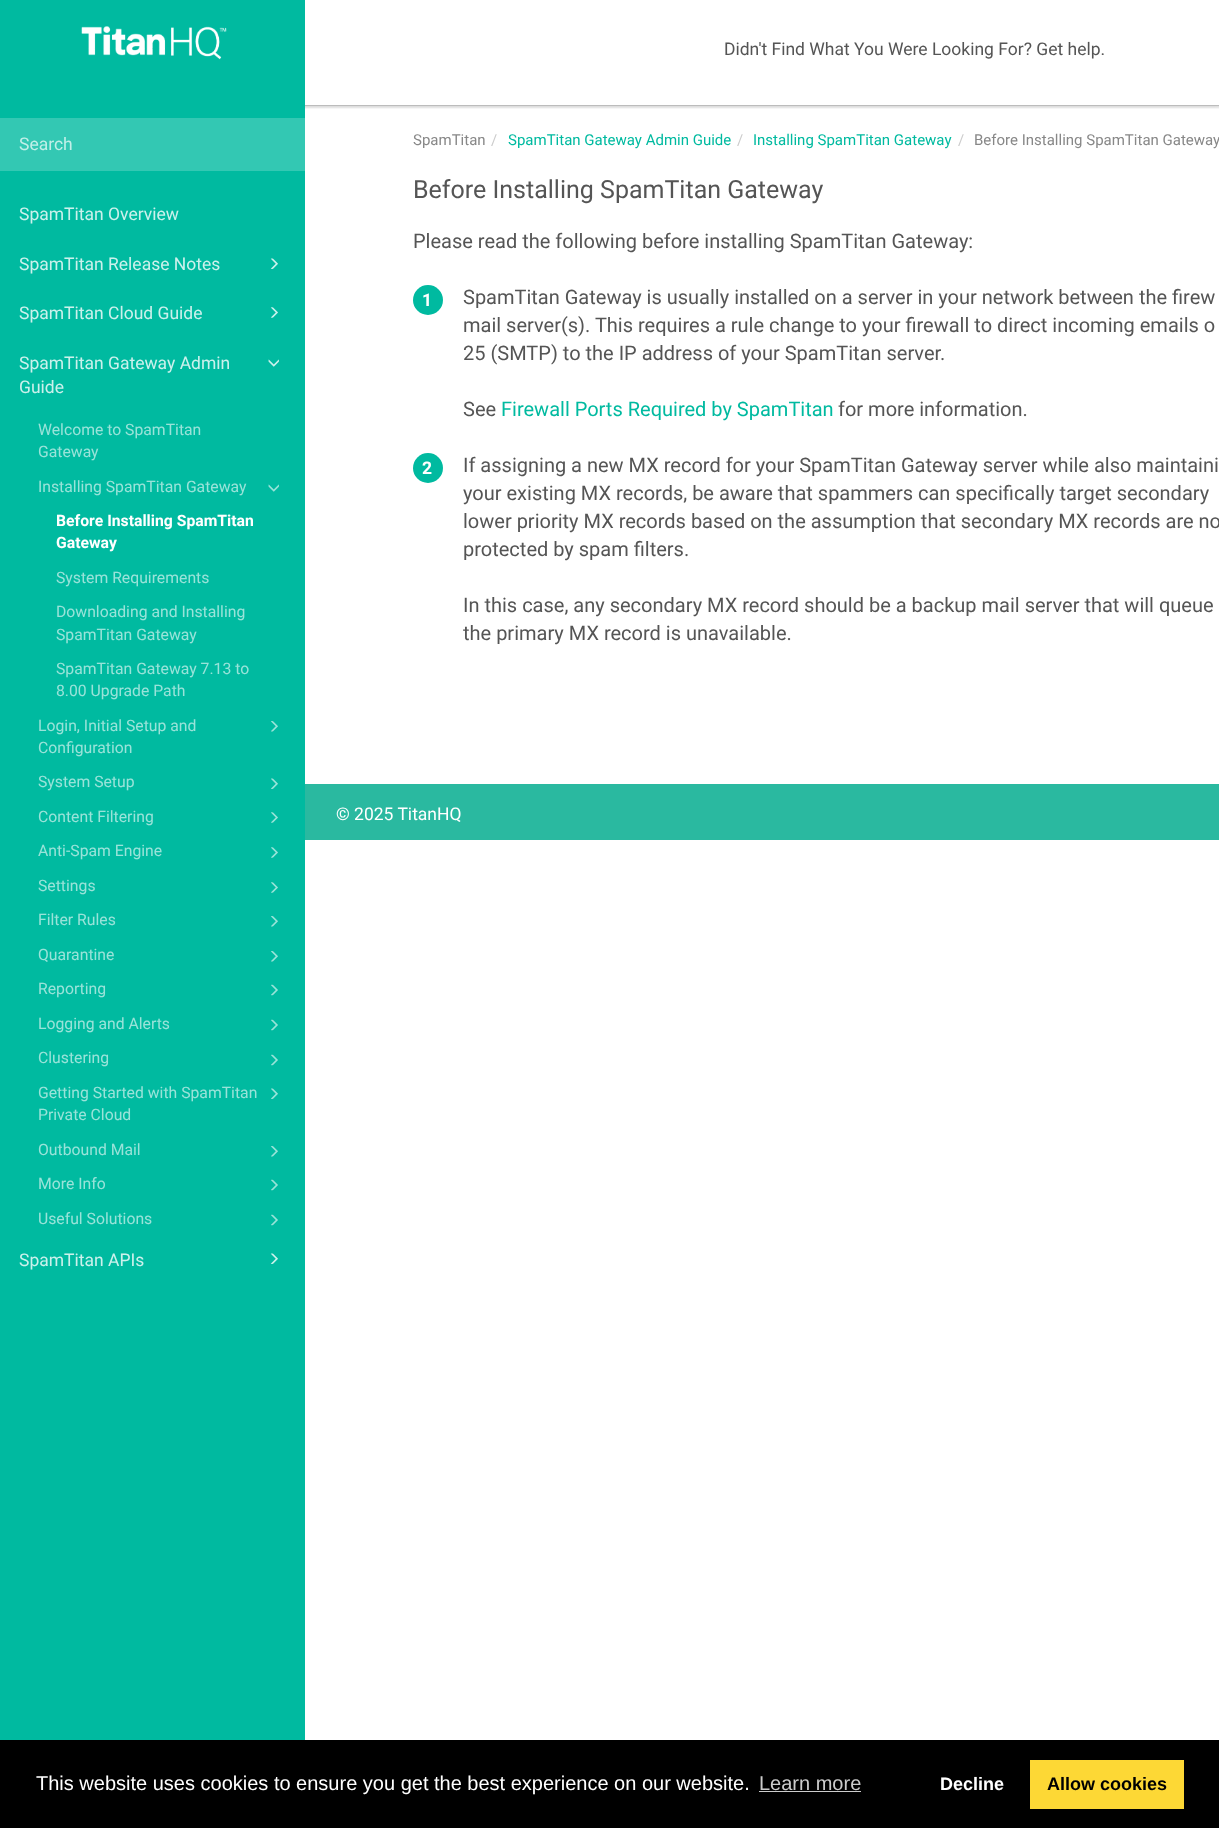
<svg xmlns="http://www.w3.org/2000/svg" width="1219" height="1828">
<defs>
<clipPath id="clip1"><rect x="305" y="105" width="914" height="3"/></clipPath>
<clipPath id="clip2"><rect x="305" y="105" width="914" height="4"/></clipPath>
<clipPath id="clip3"><rect x="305" y="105" width="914" height="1"/></clipPath>
</defs>
<rect width="100%" height="100%" fill="#fff"/>
<g clip-path="url(#clip1)">
<rect x="-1" y="-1" width="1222" height="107" fill="#00000014" filter="blur(3px)"/>
</g>
<g clip-path="url(#clip2)">
<rect x="-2" y="-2" width="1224" height="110" fill="#0000001a" filter="blur(1px)"/>
</g>
<g clip-path="url(#clip3)">
<rect x="-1" y="-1" width="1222" height="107" fill="#00000024" filter="blur(0.5px)"/>
</g>
<rect width="305" height="1740" fill="#00baa0"/>
<image x="81" y="26" width="146" height="34" href="media/1.png"/>
<rect y="118" width="305" height="53" fill="#33c8b3"/>
<text x="19" y="150" style="font-family:Roboto;font-size:17.5px;fill:#c2efe8">Search</text>
<text x="19" y="220" style="font-family:Roboto;font-size:17.5px;fill:#ccf1ec">SpamTitan Overview</text>
<text x="19" y="270" style="font-family:Roboto;font-size:17.5px;fill:#ccf1ec">SpamTitan Release Notes</text>
<image x="270" y="258" width="8" height="11" href="media/2.png"/>
<text x="19" y="319" style="font-family:Roboto;font-size:17.5px;fill:#ccf1ec">SpamTitan Cloud Guide</text>
<image x="270" y="307" width="8" height="11" href="media/3.png"/>
<text x="19" y="369" style="font-family:Roboto;font-size:17.5px;fill:#ccf1ec">SpamTitan Gateway Admin</text>
<image x="268" y="359" width="11" height="8" href="media/4.png"/>
<text x="19" y="393" style="font-family:Roboto;font-size:17.5px;fill:#ccf1ec">Guide</text>
<text x="38" y="435" style="font-family:Roboto;font-size:15.75px;fill:#99e3d9">Welcome to SpamTitan</text>
<text x="38" y="457" style="font-family:Roboto;font-size:15.75px;fill:#99e3d9">Gateway</text>
<text x="38" y="492" style="font-family:Roboto;font-size:15.75px;fill:#99e3d9">Installing SpamTitan Gateway</text>
<image x="268" y="484" width="11" height="8" href="media/5.png"/>
<text x="56" y="526" style="font-family:Roboto;font-size:15.75px;font-weight:bold;fill:#fff">Before Installing SpamTitan</text>
<text x="56" y="548" style="font-family:Roboto;font-size:15.75px;font-weight:bold;fill:#fff">Gateway</text>
<text x="56" y="583" style="font-family:Roboto;font-size:15.75px;fill:#99e3d9">System Requirements</text>
<text x="56" y="617" style="font-family:Roboto;font-size:15.75px;fill:#99e3d9">Downloading and Installing</text>
<text x="56" y="640" style="font-family:Roboto;font-size:15.75px;fill:#99e3d9">SpamTitan Gateway</text>
<text x="56" y="674" style="font-family:Roboto;font-size:15.75px;fill:#99e3d9">SpamTitan Gateway 7.13 to</text>
<text x="56" y="696" style="font-family:Roboto;font-size:15.75px;fill:#99e3d9">8.00 Upgrade Path</text>
<text x="38" y="731" style="font-family:Roboto;font-size:15.75px;fill:#99e3d9">Login, Initial Setup and</text>
<image x="271" y="721" width="7" height="11" href="media/6.png"/>
<text x="38" y="753" style="font-family:Roboto;font-size:15.75px;fill:#99e3d9">Configuration</text>
<text x="38" y="787" style="font-family:Roboto;font-size:15.75px;fill:#99e3d9">System Setup</text>
<image x="271" y="778" width="7" height="11" href="media/7.png"/>
<text x="38" y="822" style="font-family:Roboto;font-size:15.75px;fill:#99e3d9">Content Filtering</text>
<image x="271" y="812" width="7" height="11" href="media/8.png"/>
<text x="38" y="856" style="font-family:Roboto;font-size:15.75px;fill:#99e3d9">Anti-Spam Engine</text>
<image x="271" y="847" width="7" height="11" href="media/8.png"/>
<text x="38" y="891" style="font-family:Roboto;font-size:15.75px;fill:#99e3d9">Settings</text>
<image x="271" y="882" width="7" height="11" href="media/8.png"/>
<text x="38" y="925" style="font-family:Roboto;font-size:15.75px;fill:#99e3d9">Filter Rules</text>
<image x="271" y="916" width="7" height="11" href="media/6.png"/>
<text x="38" y="960" style="font-family:Roboto;font-size:15.75px;fill:#99e3d9">Quarantine</text>
<image x="271" y="951" width="7" height="11" href="media/6.png"/>
<text x="38" y="994" style="font-family:Roboto;font-size:15.75px;fill:#99e3d9">Reporting</text>
<image x="271" y="984" width="7" height="12" href="media/9.png"/>
<text x="38" y="1029" style="font-family:Roboto;font-size:15.75px;fill:#99e3d9">Logging and Alerts</text>
<image x="271" y="1019" width="7" height="12" href="media/9.png"/>
<text x="38" y="1063" style="font-family:Roboto;font-size:15.75px;fill:#99e3d9">Clustering</text>
<image x="271" y="1054" width="7" height="12" href="media/9.png"/>
<text x="38" y="1098" style="font-family:Roboto;font-size:15.75px;fill:#99e3d9">Getting Started with SpamTitan</text>
<image x="271" y="1088" width="7" height="11" href="media/7.png"/>
<text x="38" y="1120" style="font-family:Roboto;font-size:15.75px;fill:#99e3d9">Private Cloud</text>
<text x="38" y="1155" style="font-family:Roboto;font-size:15.75px;fill:#99e3d9">Outbound Mail</text>
<image x="271" y="1146" width="7" height="11" href="media/6.png"/>
<text x="38" y="1189" style="font-family:Roboto;font-size:15.75px;fill:#99e3d9">More Info</text>
<image x="271" y="1179" width="7" height="12" href="media/9.png"/>
<text x="38" y="1224" style="font-family:Roboto;font-size:15.75px;fill:#99e3d9">Useful Solutions</text>
<image x="271" y="1214" width="7" height="12" href="media/9.png"/>
<text x="19" y="1266" style="font-family:Roboto;font-size:17.5px;fill:#ccf1ec">SpamTitan APIs</text>
<image x="270" y="1253" width="8" height="11" href="media/2.png"/>
<text x="724" y="55" style="font-family:Roboto;font-size:17.5px;fill:#555">Didn't Find What You Were Looking For? Get help.</text>
<text x="413" y="145" style="font-family:Roboto;font-size:15px;fill:#888">SpamTitan</text>
<text x="491" y="145" style="font-family:Roboto;font-size:15px;fill:#ccc">/</text>
<text x="508" y="145" style="font-family:Roboto;font-size:15px;fill:#00baa0">SpamTitan Gateway Admin Guide</text>
<text x="737" y="145" style="font-family:Roboto;font-size:15px;fill:#ccc">/</text>
<text x="753" y="145" style="font-family:Roboto;font-size:15px;fill:#00baa0">Installing SpamTitan Gateway</text>
<text x="958" y="145" style="font-family:Roboto;font-size:15px;fill:#ccc">/</text>
<text x="974" y="145" style="font-family:Roboto;font-size:15px;fill:#888">Before Installing SpamTitan Gateway</text>
<text x="413" y="198" style="font-family:Roboto;font-size:25px;fill:#555">Before Installing SpamTitan Gateway</text>
<text x="413" y="248" style="font-family:Roboto;font-size:20px;fill:#555">Please read the following before installing SpamTitan Gateway:</text>
<circle cx="428" cy="300" r="15" fill="#00baa0"/>
<text x="422" y="306" style="font-family:Roboto;font-size:17.5px;font-weight:bold;fill:#fff">1</text>
<text x="463" y="304" style="font-family:Roboto;font-size:20px;fill:#555">SpamTitan Gateway is usually installed on a server in your network between the firew</text>
<text x="463" y="332" style="font-family:Roboto;font-size:20px;fill:#555">mail server(s). This requires a rule change to your firewall to direct incoming emails o</text>
<text x="463" y="360" style="font-family:Roboto;font-size:20px;fill:#555">25 (SMTP) to the IP address of your SpamTitan server.</text>
<text x="463" y="416" style="font-family:Roboto;font-size:20px;fill:#555">See</text>
<text x="501" y="416" style="font-family:Roboto;font-size:20px;fill:#00baa0">Firewall Ports Required by SpamTitan</text>
<text x="838" y="416" style="font-family:Roboto;font-size:20px;fill:#555">for more information.</text>
<circle cx="428" cy="468" r="15" fill="#00baa0"/>
<text x="422" y="474" style="font-family:Roboto;font-size:17.5px;font-weight:bold;fill:#fff">2</text>
<text x="463" y="472" style="font-family:Roboto;font-size:20px;fill:#555">If assigning a new MX record for your SpamTitan Gateway server while also maintaini</text>
<text x="463" y="500" style="font-family:Roboto;font-size:20px;fill:#555">your existing MX records, be aware that spammers can specifically target secondary</text>
<text x="463" y="528" style="font-family:Roboto;font-size:20px;fill:#555">lower priority MX records based on the assumption that secondary MX records are no</text>
<text x="463" y="556" style="font-family:Roboto;font-size:20px;fill:#555">protected by spam filters.</text>
<text x="463" y="612" style="font-family:Roboto;font-size:20px;fill:#555">In this case, any secondary MX record should be a backup mail server that will queue</text>
<text x="463" y="640" style="font-family:Roboto;font-size:20px;fill:#555">the primary MX record is unavailable.</text>
<rect x="305" y="784" width="914" height="56" fill="#2ab9a0"/>
<text x="336" y="820" style="font-family:Roboto;font-size:17.5px;fill:#fff">© 2025 TitanHQ</text>
<rect y="1740" width="1219" height="88" fill="#000"/>
<text x="36" y="1790" style="font-family:Liberation Sans;font-size:20px;fill:#fff">This website uses cookies to ensure you get the best experience on our website.</text>
<text x="759" y="1790" style="font-family:Liberation Sans;font-size:20px;fill:#ccc">Learn more</text>
<rect x="759" y="1791" width="102" height="1" fill="#ccc"/>
<text x="940" y="1790" style="font-family:Liberation Sans;font-size:18px;font-weight:bold;fill:#fff">Decline</text>
<rect x="1030" y="1760" width="154" height="49" fill="#fdd835"/>
<text x="1047" y="1790" style="font-family:Liberation Sans;font-size:18px;font-weight:bold;fill:#000">Allow cookies</text>
</svg>
